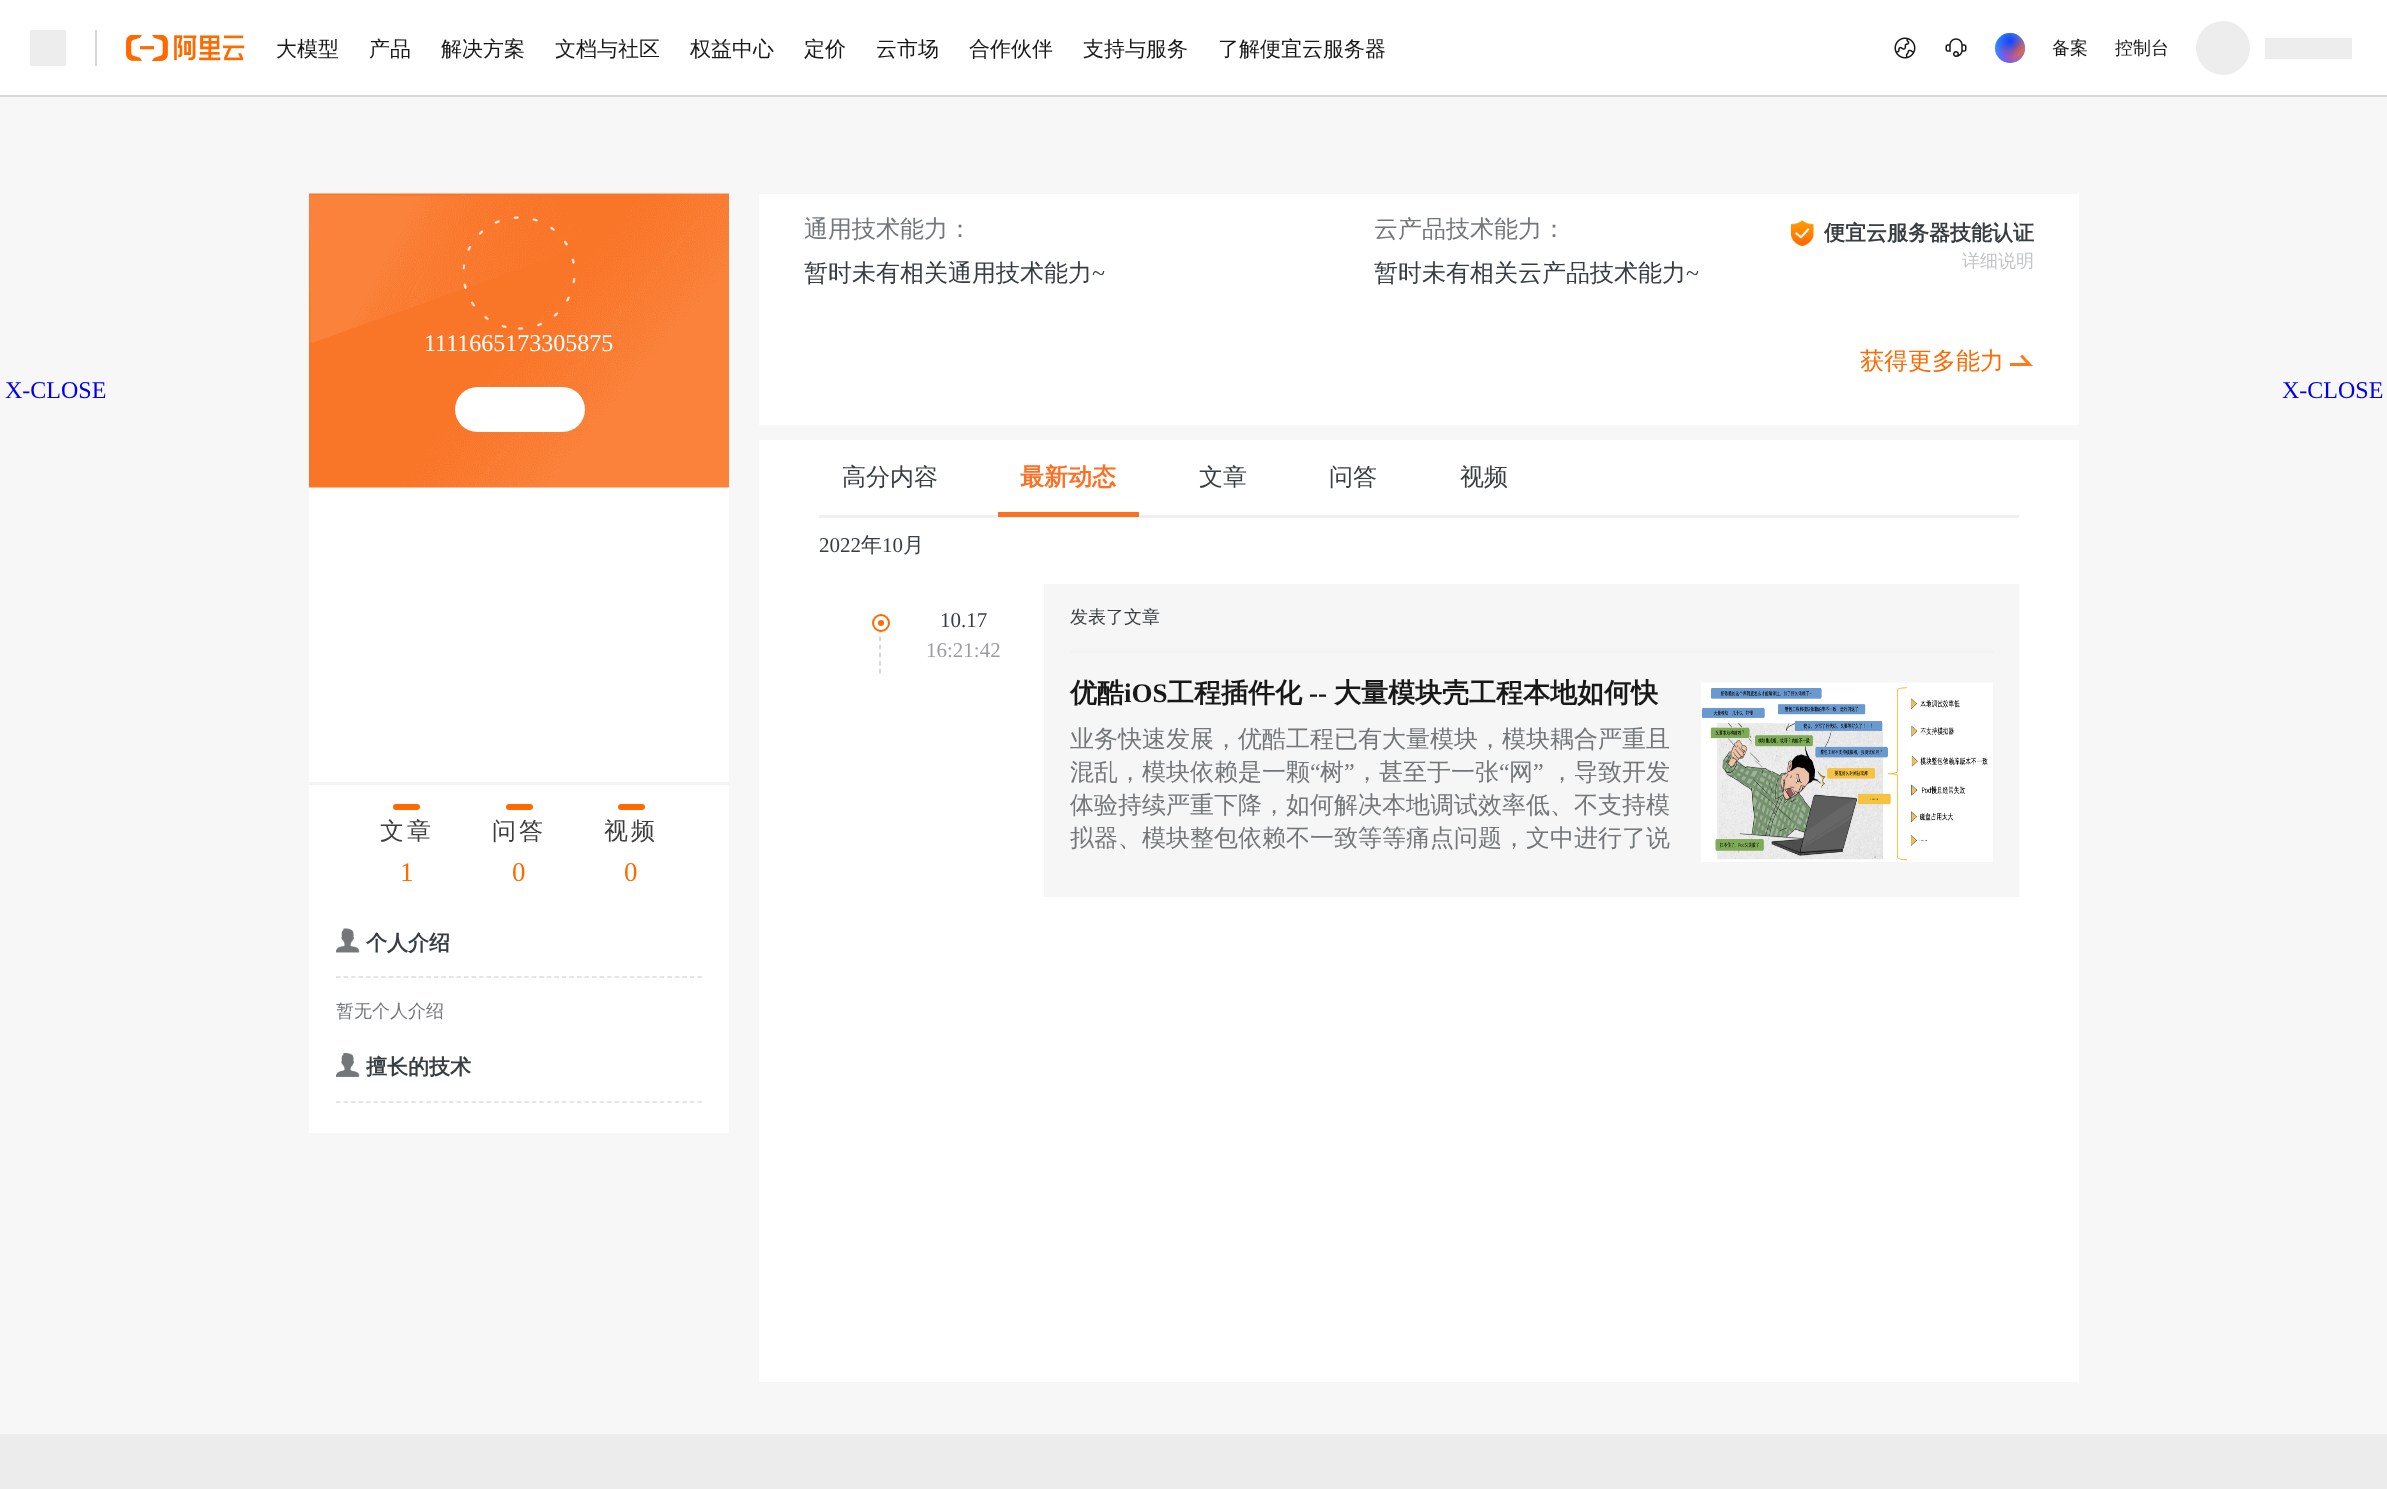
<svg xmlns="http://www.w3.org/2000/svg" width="2387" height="1489">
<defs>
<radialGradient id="g1" gradientUnits="userSpaceOnUse" cx="2010" cy="56" r="27"><stop offset="0.05" stop-color="#7b47ff"/><stop offset="0.8" stop-color="#7b47ff" stop-opacity="0"/></radialGradient>
<radialGradient id="g2" gradientUnits="userSpaceOnUse" cx="2018" cy="48" r="27"><stop offset="0.05" stop-color="#ff6432"/><stop offset="0.7" stop-color="#ff6432" stop-opacity="0"/></radialGradient>
<radialGradient id="g3" gradientUnits="userSpaceOnUse" cx="2010" cy="41" r="27"><stop offset="0.05" stop-color="#1548ff"/><stop offset="0.6" stop-color="#1548ff" stop-opacity="0"/></radialGradient>
</defs>
<rect width="100%" height="100%" fill="#f7f7f7"/>
<rect width="2387" height="95" fill="#fff"/>
<rect y="95" width="2387" height="2" fill="#d7d8d9"/>
<rect x="30" y="30" width="36" height="36" fill="#ededed"/>
<rect x="95" y="30" width="2" height="36" fill="#d8d8d8"/>
<image x="126" y="35" width="119" height="26" href="media/1.png"/>
<text x="276" y="56" style="font-family:WenQuanYi Zen Hei;font-size:21px;font-weight:500;fill:#181818">大模型</text>
<text x="369" y="56" style="font-family:WenQuanYi Zen Hei;font-size:21px;font-weight:500;fill:#181818">产品</text>
<text x="441" y="56" style="font-family:WenQuanYi Zen Hei;font-size:21px;font-weight:500;fill:#181818">解决方案</text>
<text x="555" y="56" style="font-family:WenQuanYi Zen Hei;font-size:21px;font-weight:500;fill:#181818">文档与社区</text>
<text x="690" y="56" style="font-family:WenQuanYi Zen Hei;font-size:21px;font-weight:500;fill:#181818">权益中心</text>
<text x="804" y="56" style="font-family:WenQuanYi Zen Hei;font-size:21px;font-weight:500;fill:#181818">定价</text>
<text x="876" y="56" style="font-family:WenQuanYi Zen Hei;font-size:21px;font-weight:500;fill:#181818">云市场</text>
<text x="969" y="56" style="font-family:WenQuanYi Zen Hei;font-size:21px;font-weight:500;fill:#181818">合作伙伴</text>
<text x="1083" y="56" style="font-family:WenQuanYi Zen Hei;font-size:21px;font-weight:500;fill:#181818">支持与服务</text>
<text x="1218" y="56" style="font-family:WenQuanYi Zen Hei;font-size:21px;font-weight:500;fill:#181818">了解便宜云服务器</text>
<image x="1894" y="37" width="22" height="22" href="media/2.png"/>
<image x="1945" y="38" width="22" height="19" href="media/3.png"/>
<circle cx="2010" cy="48" r="15" fill="#25a5ff"/>
<circle cx="2010" cy="48" r="15" fill="url(#g1)"/>
<circle cx="2010" cy="48" r="15" fill="url(#g2)"/>
<circle cx="2010" cy="48" r="15" fill="url(#g3)"/>
<text x="2052" y="54" style="font-family:WenQuanYi Zen Hei;font-size:18px;font-weight:500;fill:#181818">备案</text>
<text x="2115" y="54" style="font-family:WenQuanYi Zen Hei;font-size:18px;font-weight:500;fill:#181818">控制台</text>
<circle cx="2223" cy="48" r="27" fill="#ededed"/>
<rect x="2265" y="38" width="87" height="21" fill="#ededed"/>
<text x="5" y="398" style="font-family:Liberation Serif;font-size:24px;fill:#00e">X-CLOSE</text>
<rect x="309" y="487" width="420" height="646" fill="#fff"/>
<image x="309" y="193" width="420" height="295" href="media/4.png"/>
<image x="462" y="216" width="114" height="114" href="media/5.png"/>
<text x="424" y="351" style="font-family:Liberation Serif;font-size:24px;fill:#fff">1111665173305875</text>
<rect x="455" y="387" width="130" height="45" rx="22.5" fill="#fff"/>
<rect x="309" y="782" width="420" height="3" fill="#f4f4f4"/>
<rect x="393" y="804" width="27" height="6" rx="3" fill="#ff6a00"/>
<text x="380" y="839" style="font-family:WenQuanYi Zen Hei;font-size:24px;font-weight:500;letter-spacing:3px;fill:#3d3d3d">文章</text>
<text x="400" y="881" style="font-family:Liberation Serif;font-size:27px;fill:#ff6a00">1</text>
<rect x="506" y="804" width="27" height="6" rx="3" fill="#ff6a00"/>
<text x="492" y="839" style="font-family:WenQuanYi Zen Hei;font-size:24px;font-weight:500;letter-spacing:3px;fill:#3d3d3d">问答</text>
<text x="512" y="881" style="font-family:Liberation Serif;font-size:27px;fill:#ff6a00">0</text>
<rect x="618" y="804" width="27" height="6" rx="3" fill="#ff6a00"/>
<text x="604" y="839" style="font-family:WenQuanYi Zen Hei;font-size:24px;font-weight:500;letter-spacing:3px;fill:#3d3d3d">视频</text>
<text x="624" y="881" style="font-family:Liberation Serif;font-size:27px;fill:#ff6a00">0</text>
<image x="336" y="928" width="24" height="25" href="media/6.png"/>
<path d="M336 977h366" fill="none" stroke="#ddd" stroke-width="1.5" stroke-dasharray="4.5 3.03"/>
<text x="366" y="950" style="font-family:WenQuanYi Zen Hei;font-size:21px;font-weight:bold;fill:#373d41">个人介绍</text>
<text x="336" y="1017" style="font-family:WenQuanYi Zen Hei;font-size:18px;font-weight:500;fill:#73777a">暂无个人介绍</text>
<image x="336" y="1053" width="24" height="24" href="media/7.png"/>
<path d="M336 1102h366" fill="none" stroke="#ddd" stroke-width="1.5" stroke-dasharray="4.5 3.03"/>
<text x="366" y="1074" style="font-family:WenQuanYi Zen Hei;font-size:21px;font-weight:bold;fill:#373d41">擅长的技术</text>
<rect x="759" y="194" width="1320" height="231" fill="#fff"/>
<text x="804" y="237" style="font-family:WenQuanYi Zen Hei;font-size:24px;font-weight:500;fill:#73777a">通用技术能力：</text>
<text x="804" y="281" style="font-family:WenQuanYi Zen Hei;font-size:24px;font-weight:500;fill:#373d41">暂时未有相关通用技术能力</text>
<text x="1092" y="281" style="font-family:Liberation Serif;font-size:24px;fill:#373d41">~</text>
<text x="1374" y="237" style="font-family:WenQuanYi Zen Hei;font-size:24px;font-weight:500;fill:#73777a">云产品技术能力：</text>
<text x="1374" y="281" style="font-family:WenQuanYi Zen Hei;font-size:24px;font-weight:500;fill:#373d41">暂时未有相关云产品技术能力</text>
<text x="1686" y="281" style="font-family:Liberation Serif;font-size:24px;fill:#373d41">~</text>
<image x="1791" y="220" width="23" height="26" href="media/8.png"/>
<text x="1824" y="240" style="font-family:WenQuanYi Zen Hei;font-size:21px;font-weight:bold;fill:#373d41">便宜云服务器技能认证</text>
<text x="1962" y="267" style="font-family:WenQuanYi Zen Hei;font-size:18px;font-weight:500;fill:#c2c4c5">详细说明</text>
<text x="1860" y="369" style="font-family:WenQuanYi Zen Hei;font-size:24px;font-weight:500;fill:#ff6a00">获得更多能力</text>
<image x="2010" y="354" width="24" height="12" href="media/9.png"/>
<rect x="759" y="440" width="1320" height="942" fill="#fff"/>
<rect x="819" y="515" width="1200" height="3" fill="#efefef"/>
<text x="842" y="485" style="font-family:WenQuanYi Zen Hei;font-size:24px;font-weight:500;fill:#373d41">高分内容</text>
<text x="1020" y="485" style="font-family:WenQuanYi Zen Hei;font-size:24px;font-weight:bold;fill:#ff6f22">最新动态</text>
<rect x="998" y="512" width="141" height="5" fill="#ff6f22"/>
<text x="1199" y="485" style="font-family:WenQuanYi Zen Hei;font-size:24px;font-weight:500;fill:#373d41">文章</text>
<text x="1329" y="485" style="font-family:WenQuanYi Zen Hei;font-size:24px;font-weight:500;fill:#373d41">问答</text>
<text x="1460" y="485" style="font-family:WenQuanYi Zen Hei;font-size:24px;font-weight:500;fill:#373d41">视频</text>
<text x="819" y="552" style="font-family:Liberation Serif;font-size:21px;fill:#373d41">2022</text>
<text x="861" y="552" style="font-family:WenQuanYi Zen Hei;font-size:21px;font-weight:500;fill:#373d41">年</text>
<text x="882" y="552" style="font-family:Liberation Serif;font-size:21px;fill:#373d41">10</text>
<text x="903" y="552" style="font-family:WenQuanYi Zen Hei;font-size:21px;font-weight:500;fill:#373d41">月</text>
<path d="M880 628.5v45" fill="none" stroke="#cacaca" stroke-width="1.5" stroke-dasharray="4.5 3.6"/>
<circle cx="881" cy="623" r="8" fill="#fff" stroke="#ff6a00" stroke-width="2"/>
<circle cx="881" cy="623" r="3" fill="#ff6a00"/>
<text x="940" y="627" style="font-family:Liberation Serif;font-size:21px;fill:#373d41">10.17</text>
<text x="926" y="657" style="font-family:Liberation Serif;font-size:21px;fill:#9b9ea0">16:21:42</text>
<rect x="1044" y="584" width="975" height="313" fill="#f6f6f6"/>
<rect x="1070" y="650" width="924" height="3" fill="#f2f3f3"/>
<text x="1070" y="623" style="font-family:WenQuanYi Zen Hei;font-size:18px;font-weight:500;fill:#373d41">发表了文章</text>
<text x="1070" y="702" style="font-family:WenQuanYi Zen Hei;font-size:27px;font-weight:bold;fill:#181818">优酷</text>
<text x="1124" y="702" style="font-family:Liberation Serif;font-size:27px;font-weight:bold;fill:#181818">iOS</text>
<text x="1167" y="702" style="font-family:WenQuanYi Zen Hei;font-size:27px;font-weight:bold;fill:#181818">工程插件化</text>
<text x="1309" y="702" style="font-family:Liberation Serif;font-size:27px;font-weight:bold;fill:#181818">--</text>
<text x="1334" y="702" style="font-family:WenQuanYi Zen Hei;font-size:27px;font-weight:bold;fill:#181818">大量模块壳工程本地如何快</text>
<text x="1070" y="747" style="font-family:WenQuanYi Zen Hei;font-size:24px;font-weight:500;fill:#73777a">业务快速发展，优酷工程已有大量模块，模块耦合严重且</text>
<text x="1070" y="780" style="font-family:WenQuanYi Zen Hei;font-size:24px;font-weight:500;fill:#73777a">混乱，模块依赖是一颗</text>
<text x="1310" y="780" style="font-family:Liberation Serif;font-size:24px;fill:#73777a">“</text>
<text x="1320" y="780" style="font-family:WenQuanYi Zen Hei;font-size:24px;font-weight:500;fill:#73777a">树</text>
<text x="1344" y="780" style="font-family:Liberation Serif;font-size:24px;fill:#73777a">”</text>
<text x="1355" y="780" style="font-family:WenQuanYi Zen Hei;font-size:24px;font-weight:500;fill:#73777a">，甚至于一张</text>
<text x="1499" y="780" style="font-family:Liberation Serif;font-size:24px;fill:#73777a">“</text>
<text x="1509" y="780" style="font-family:WenQuanYi Zen Hei;font-size:24px;font-weight:500;fill:#73777a">网</text>
<text x="1533" y="780" style="font-family:Liberation Serif;font-size:24px;fill:#73777a">”</text>
<text x="1550" y="780" style="font-family:WenQuanYi Zen Hei;font-size:24px;font-weight:500;fill:#73777a">，导致开发</text>
<text x="1070" y="813" style="font-family:WenQuanYi Zen Hei;font-size:24px;font-weight:500;fill:#73777a">体验持续严重下降，如何解决本地调试效率低、不支持模</text>
<text x="1070" y="846" style="font-family:WenQuanYi Zen Hei;font-size:24px;font-weight:500;fill:#73777a">拟器、模块整包依赖不一致等等痛点问题，文中进行了说</text>
<image x="1701" y="682" width="292" height="180" href="media/10.png"/>
<text x="2282" y="398" style="font-family:Liberation Serif;font-size:24px;fill:#00e">X-CLOSE</text>
<rect y="1434" width="2387" height="55" fill="#ececec"/>
</svg>
